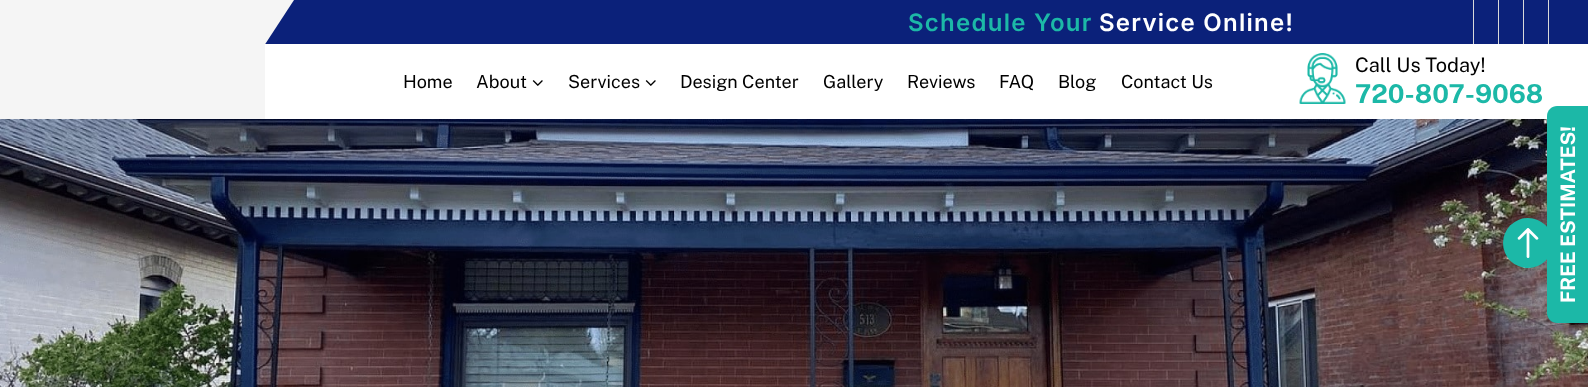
<svg xmlns="http://www.w3.org/2000/svg" width="1588" height="387">
<rect width="100%" height="100%" fill="#fff"/>
<rect x="265" width="1323" height="44" fill="#0b217a"/>
<path d="M-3 0h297l-34 52h-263z" fill="#f5f5f5"/>
<text x="908" y="31" style="font-family:Inter;font-size:24px;font-weight:600;letter-spacing:1.25px;fill:#1cb8a7">Schedule Your</text>
<text x="1099" y="31" style="font-family:Inter;font-size:24px;font-weight:600;letter-spacing:1.25px;fill:#fff">Service Online!</text>
<rect x="1473" width="1" height="44" fill="#d9d9d9"/>
<rect x="1498" width="1" height="44" fill="#d9d9d9"/>
<rect x="1523" width="1" height="44" fill="#d9d9d9"/>
<rect x="1548" width="1" height="44" fill="#d9d9d9"/>
<rect y="45" width="265" height="74" fill="#f5f5f5"/>
<text x="403" y="88" style="font-family:Public Sans;font-size:18px;fill:#000">Home</text>
<text x="476" y="88" style="font-family:Public Sans;font-size:18px;fill:#000">About</text>
<image x="532" y="80" width="11" height="6" href="media/1.png"/>
<text x="568" y="88" style="font-family:Public Sans;font-size:18px;fill:#000">Services</text>
<image x="645" y="80" width="11" height="6" href="media/1.png"/>
<text x="680" y="88" style="font-family:Public Sans;font-size:18px;fill:#000">Design Center</text>
<text x="823" y="88" style="font-family:Public Sans;font-size:18px;fill:#000">Gallery</text>
<text x="907" y="88" style="font-family:Public Sans;font-size:18px;fill:#000">Reviews</text>
<text x="999" y="88" style="font-family:Public Sans;font-size:18px;fill:#000">FAQ</text>
<text x="1058" y="88" style="font-family:Public Sans;font-size:18px;fill:#000">Blog</text>
<text x="1121" y="88" style="font-family:Public Sans;font-size:18px;fill:#000">Contact Us</text>
<image x="1299" y="53" width="47" height="51" href="media/2.png"/>
<text x="1355" y="72" style="font-family:Public Sans;font-size:20px;fill:#000">Call Us Today!</text>
<text x="1355" y="103" style="font-family:Public Sans;font-size:26px;font-weight:bold;fill:#1cb8a7">720-807-9068</text>
<image x="0" y="119" width="1588" height="268" href="media/3.png"/>
<circle cx="1528" cy="243" r="25" fill="#1cb8a7"/>
<image x="1517" y="228" width="22" height="30" href="media/4.png"/>
<path d="M1547 313v-197c0-6 5-10 10-10h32v217h-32c-5 0-10-4-10-10z" fill="#1cb8a7"/>
<text x="1575" y="303" transform="rotate(-90 1575 303)" style="font-family:Public Sans;font-size:20px;font-weight:bold;fill:#fff">FREE ESTIMATES!</text>
</svg>
